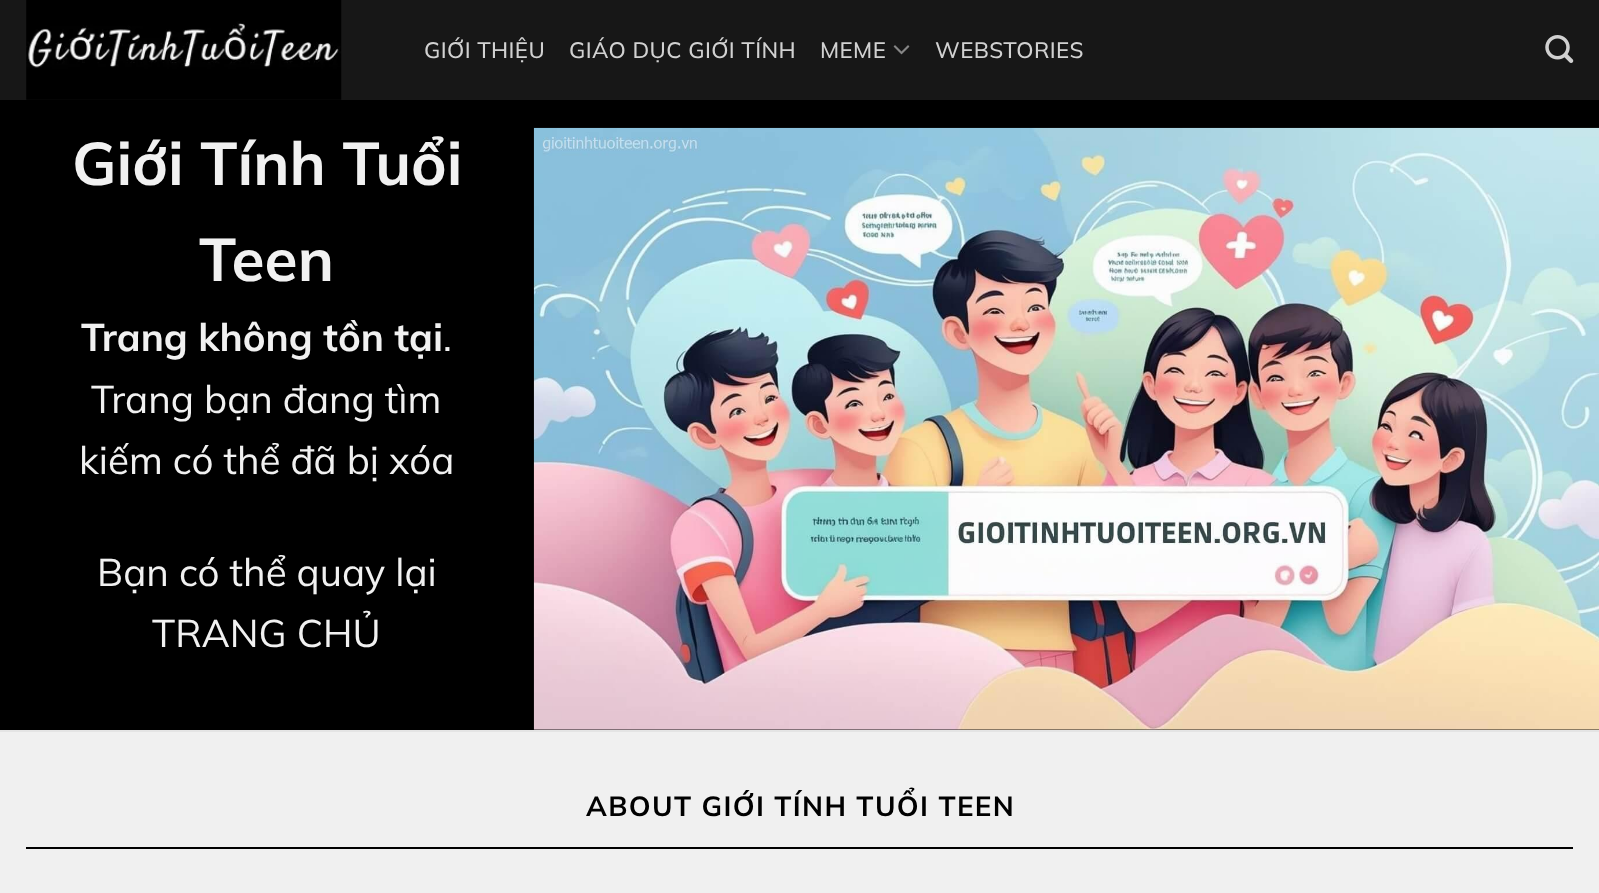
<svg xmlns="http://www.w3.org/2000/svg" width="1599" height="893">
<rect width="100%" height="100%" fill="#000"/>
<rect width="1599" height="100" fill="#171717"/>
<image x="26" y="0" width="316" height="100" href="media/1.png"/>
<text x="424" y="58" style="font-family:Mulish;font-size:22.25px;font-weight:500;letter-spacing:0.4px;fill:#d1d1d1">GIỚI THIỆU</text>
<text x="569" y="58" style="font-family:Mulish;font-size:22.25px;font-weight:500;letter-spacing:0.4px;fill:#d1d1d1">GIÁO DỤC GIỚI TÍNH</text>
<text x="820" y="58" style="font-family:Mulish;font-size:22.25px;font-weight:500;letter-spacing:0.4px;fill:#d1d1d1">MEME</text>
<image x="893" y="45" width="17" height="10" href="media/2.png"/>
<text x="935" y="58" style="font-family:Mulish;font-size:22.25px;font-weight:500;letter-spacing:0.4px;fill:#d1d1d1">WEBSTORIES</text>
<image x="1545" y="35" width="29" height="28" href="media/3.png"/>
<text x="72" y="185" style="font-family:Mulish;font-size:60.25px;font-weight:bold;fill:#f1f1f1">Giới Tính Tuổi</text>
<text x="199" y="281" style="font-family:Mulish;font-size:60.25px;font-weight:bold;fill:#f1f1f1">Teen</text>
<text x="81" y="351" style="font-family:Mulish;font-size:38.5px;font-weight:bold;fill:#f1f1f1">Trang không tồn tại</text>
<text x="443" y="351" style="font-family:Mulish;font-size:38.5px;fill:#f1f1f1">.</text>
<text x="91" y="413" style="font-family:Mulish;font-size:38.5px;fill:#f1f1f1">Trang bạn đang tìm</text>
<text x="79" y="474" style="font-family:Mulish;font-size:38.5px;fill:#f1f1f1">kiếm có thể đã bị xóa</text>
<text x="97" y="586" style="font-family:Mulish;font-size:38.5px;fill:#f1f1f1">Bạn có thể quay lại</text>
<text x="152" y="647" style="font-family:Mulish;font-size:38.5px;fill:#f1f1f1">TRANG CHỦ</text>
<image x="533" y="127" width="1066" height="603" href="media/4.png"/>
<rect y="732" width="1599" height="161" fill="#f0f0f0"/>
<rect y="730" width="1599" height="2" fill="#e4e4e4"/>
<text x="586" y="816" style="font-family:Mulish;font-size:27.75px;font-weight:bold;letter-spacing:1.4px;fill:#000">ABOUT GIỚI TÍNH TUỔI TEEN</text>
<rect x="26" y="847" width="1547" height="2" fill="#000"/>
</svg>
